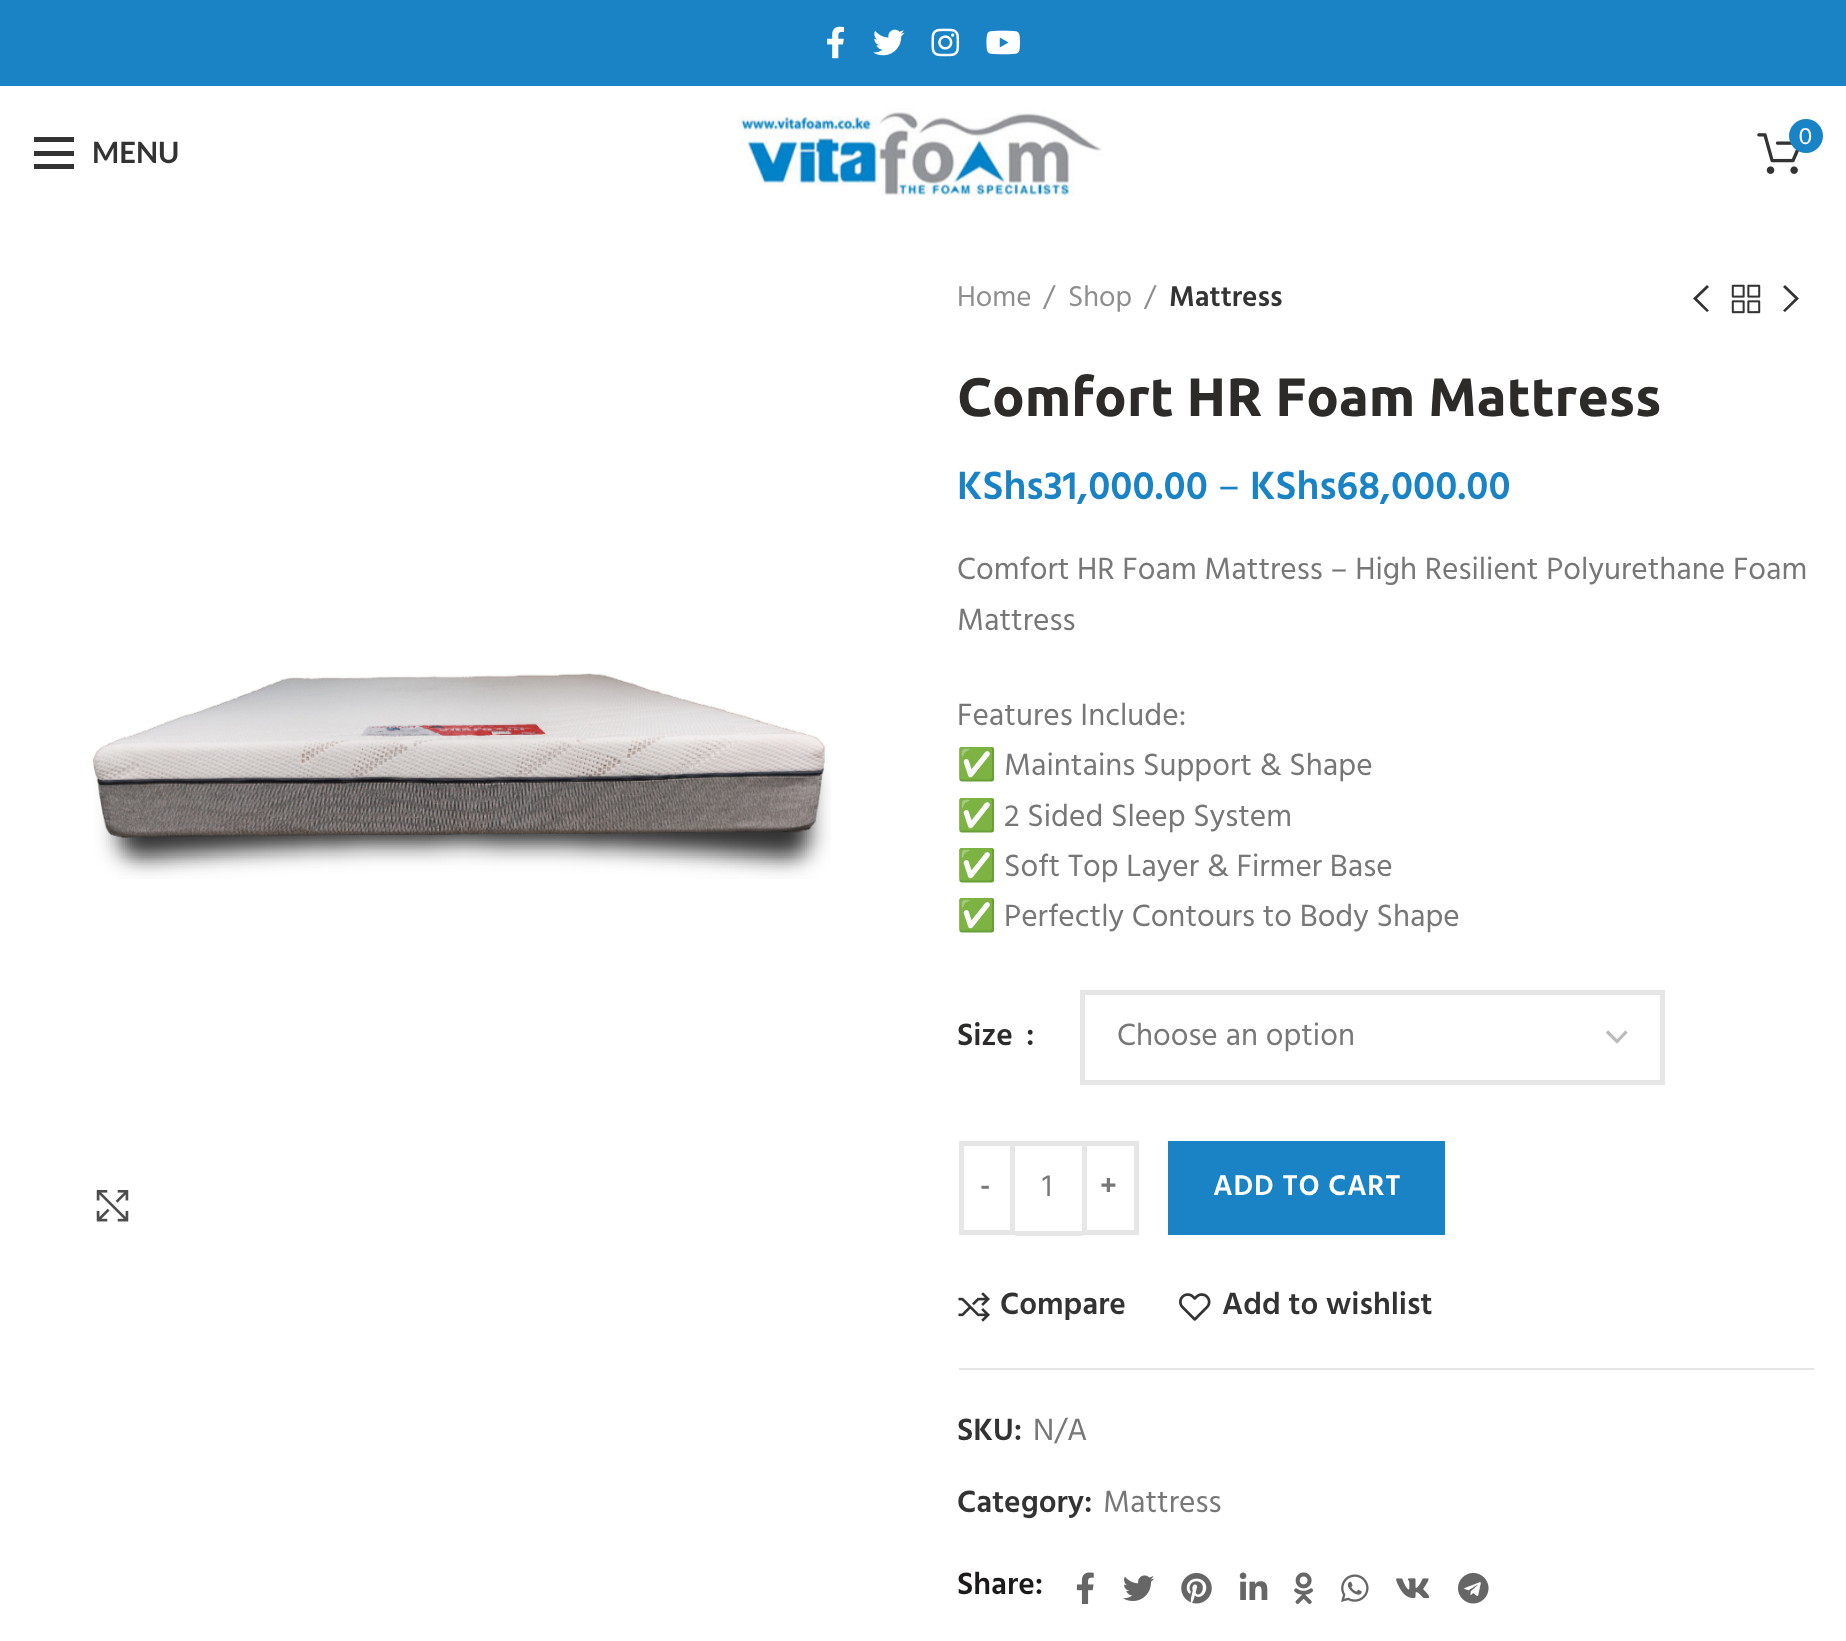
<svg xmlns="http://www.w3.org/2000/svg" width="1846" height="1641">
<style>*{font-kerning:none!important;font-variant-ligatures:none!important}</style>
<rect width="100%" height="100%" fill="#fff"/>
<rect width="1846" height="86" fill="#1a83c5"/>
<image x="827" y="26" width="18" height="33" href="media/1.png"/>
<image x="873" y="29" width="32" height="27" href="media/2.png"/>
<image x="931" y="28" width="29" height="29" href="media/3.png"/>
<image x="986" y="30" width="34" height="25" href="media/4.png"/>
<image x="738" y="108" width="364" height="88" href="media/5.png"/>
<image x="1757" y="133" width="42" height="41" href="media/6.png"/>
<circle cx="1806" cy="136" r="17" fill="#1a83c5"/>
<text x="1799" y="144" style="font-family:Lato;font-size:22px;fill:#fff">0</text>
<rect x="34" y="151" width="40" height="5" fill="#333"/>
<rect x="34" y="137" width="40" height="5" fill="#333"/>
<rect x="34" y="164" width="40" height="5" fill="#333"/>
<text x="92" y="163" style="font-family:Lato;font-size:29.25px;font-weight:bold;fill:#333">MENU</text>
<image x="93" y="673" width="738" height="206" href="media/7.png"/>
<image x="96" y="1190" width="33" height="32" href="media/8.png"/>
<text x="957" y="306" style="font-family:Hind;font-size:29.25px;fill:#8e8e8e">Home</text>
<text x="1043" y="306" style="font-family:Hind;font-size:29.25px;fill:#8e8e8e">/</text>
<text x="1068" y="306" style="font-family:Hind;font-size:29.25px;fill:#8e8e8e">Shop</text>
<text x="1144" y="306" style="font-family:Hind;font-size:29.25px;fill:#8e8e8e">/</text>
<text x="1169" y="306" style="font-family:Hind;font-size:29.25px;font-weight:600;fill:#333">Mattress</text>
<path d="M1709 287l-12 11.5l12 12l-2 1.5l-14-13.5l14-13.5z" fill="#333"/>
<image x="1731" y="284" width="30" height="30" href="media/9.png"/>
<path d="M1785 285l14 13.5l-14 13.5l-2-1.5l12-12l-12-11.5z" fill="#333"/>
<text x="957" y="416" style="font-family:Ubuntu;font-size:54px;font-weight:bold;fill:#2d2a2a">Comfort HR Foam Mattress</text>
<text x="957" y="499" style="font-family:Hind;font-size:40.5px;font-weight:600;fill:#1a83c5">KShs31,000.00</text>
<text x="1218" y="499" style="font-family:Hind;font-size:40.5px;fill:#1a83c5">–</text>
<text x="1250" y="499" style="font-family:Hind;font-size:40.5px;font-weight:600;fill:#1a83c5">KShs68,000.00</text>
<text x="957" y="579" style="font-family:Hind;font-size:31.5px;fill:#777">Comfort HR Foam Mattress – High Resilient Polyurethane Foam</text>
<text x="957" y="630" style="font-family:Hind;font-size:31.5px;fill:#777">Mattress</text>
<text x="957" y="725" style="font-family:Hind;font-size:31.5px;fill:#777">Features Include:</text>
<text x="957" y="775" style="font-family:Noto Color Emoji;font-size:31.5px;fill:#777">✅</text>
<text x="1004" y="775" style="font-family:Hind;font-size:31.5px;fill:#777">Maintains Support &amp; Shape</text>
<text x="957" y="826" style="font-family:Noto Color Emoji;font-size:31.5px;fill:#777">✅</text>
<text x="1004" y="826" style="font-family:Hind;font-size:31.5px;fill:#777">2 Sided Sleep System</text>
<text x="957" y="876" style="font-family:Noto Color Emoji;font-size:31.5px;fill:#777">✅</text>
<text x="1004" y="876" style="font-family:Hind;font-size:31.5px;fill:#777">Soft Top Layer &amp; Firmer Base</text>
<text x="957" y="926" style="font-family:Noto Color Emoji;font-size:31.5px;fill:#777">✅</text>
<text x="1004" y="926" style="font-family:Hind;font-size:31.5px;fill:#777">Perfectly Contours to Body Shape</text>
<text x="957" y="1045" style="font-family:Hind;font-size:31.5px;font-weight:600;fill:#2d2a2a">Size</text>
<text x="1026" y="1045" style="font-family:Hind;font-size:31.5px;font-weight:600;fill:#2d2a2a">:</text>
<path d="M1607 1031.5l10 10l9.5-10" fill="none" stroke="#bbb" stroke-width="3.2"/>
<rect x="1082.5" y="992.5" width="580" height="90" fill="none" stroke="#e6e6e6" stroke-width="5"/>
<text x="1117" y="1045" style="font-family:Hind;font-size:31.5px;fill:#777">Choose an option</text>
<rect x="961.5" y="1143.5" width="51" height="89" fill="none" stroke="#e6e6e6" stroke-width="5"/>
<text x="980" y="1195" style="font-family:Hind;font-size:29.25px;font-weight:600;letter-spacing:0.75px;fill:#777">-</text>
<rect x="1015" y="1141" width="67" height="5" fill="#e6e6e6"/>
<rect x="1015" y="1231" width="67" height="5" fill="#e6e6e6"/>
<text x="1042" y="1196" style="font-family:Hind;font-size:31.5px;fill:#777">1</text>
<rect x="1084.5" y="1143.5" width="52" height="89" fill="none" stroke="#e6e6e6" stroke-width="5"/>
<text x="1100" y="1195" style="font-family:Hind;font-size:29.25px;font-weight:600;letter-spacing:0.75px;fill:#777">+</text>
<rect x="1168" y="1141" width="277" height="94" fill="#1a83c5"/>
<text x="1213" y="1195" style="font-family:Hind;font-size:29.25px;font-weight:600;letter-spacing:0.75px;fill:#fff">ADD TO CART</text>
<path d="M1293.5 1174.5c4-3.5 8.5-5.5 13.5-5.5c23 0 26.5 33.5 4 38c-6 1-13-1-17.5-5.5" fill="none" stroke="#1a83c5" stroke-width="2.2"/>
<image x="958" y="1292" width="32" height="30" href="media/10.png"/>
<text x="1000" y="1314" style="font-family:Hind;font-size:31.5px;font-weight:600;fill:#333">Compare</text>
<image x="1179" y="1293" width="32" height="28" href="media/11.png"/>
<text x="1222" y="1314" style="font-family:Hind;font-size:31.5px;font-weight:600;fill:#333">Add to wishlist</text>
<rect x="959" y="1368" width="855" height="2" fill="#e6e6e6"/>
<text x="957" y="1440" style="font-family:Hind;font-size:31.5px;font-weight:600;fill:#333">SKU:</text>
<text x="1033" y="1440" style="font-family:Hind;font-size:31.5px;fill:#777">N/A</text>
<text x="957" y="1512" style="font-family:Hind;font-size:31.5px;font-weight:600;fill:#333">Category:</text>
<text x="1103" y="1512" style="font-family:Hind;font-size:31.5px;fill:#777">Mattress</text>
<text x="957" y="1594" style="font-family:Hind;font-size:31.5px;font-weight:600;fill:#1b1919">Share:</text>
<image x="1076" y="1572" width="18" height="32" href="media/12.png"/>
<image x="1123" y="1575" width="31" height="26" href="media/13.png"/>
<image x="1181" y="1573" width="31" height="31" href="media/14.png"/>
<image x="1239" y="1572" width="29" height="28" href="media/15.png"/>
<image x="1294" y="1572" width="19" height="32" href="media/16.png"/>
<image x="1341" y="1574" width="28" height="28" href="media/17.png"/>
<image x="1396" y="1578" width="34" height="21" href="media/18.png"/>
<image x="1458" y="1573" width="31" height="31" href="media/19.png"/>
</svg>
